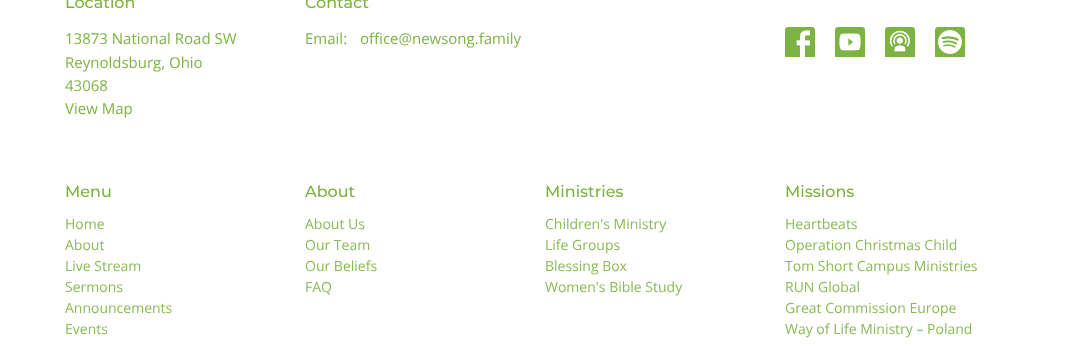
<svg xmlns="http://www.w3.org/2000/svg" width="1069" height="350">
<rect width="100%" height="100%" fill="#fff"/>
<text x="65" y="8" style="font-family:Montserrat;font-size:16px;font-weight:500;fill:#7cb342">Location</text>
<text x="65" y="44" style="font-family:Open Sans;font-size:15px;fill:#7cb342">13873 National Road SW</text>
<text x="65" y="68" style="font-family:Open Sans;font-size:15px;fill:#7cb342">Reynoldsburg, Ohio</text>
<text x="65" y="91" style="font-family:Open Sans;font-size:15px;fill:#7cb342">43068</text>
<text x="65" y="114" style="font-family:Open Sans;font-size:15px;fill:#7cb342">View Map</text>
<text x="305" y="8" style="font-family:Montserrat;font-size:16px;font-weight:500;fill:#7cb342">Contact</text>
<text x="305" y="44" style="font-family:Open Sans;font-size:15px;fill:#7cb342">Email:</text>
<text x="360" y="44" style="font-family:Open Sans;font-size:15px;fill:#7cb342">office@newsong.family</text>
<image x="785" y="27" width="30" height="30" href="media/1.png"/>
<image x="835" y="27" width="30" height="30" href="media/2.png"/>
<image x="885" y="27" width="30" height="30" href="media/3.png"/>
<image x="935" y="27" width="30" height="30" href="media/4.png"/>
<text x="65" y="197" style="font-family:Montserrat;font-size:16px;font-weight:500;fill:#7cb342">Menu</text>
<text x="65" y="229" style="font-family:Open Sans;font-size:14px;fill:#89bb55">Home</text>
<text x="65" y="250" style="font-family:Open Sans;font-size:14px;fill:#89bb55">About</text>
<text x="65" y="271" style="font-family:Open Sans;font-size:14px;fill:#89bb55">Live Stream</text>
<text x="65" y="292" style="font-family:Open Sans;font-size:14px;fill:#89bb55">Sermons</text>
<text x="65" y="313" style="font-family:Open Sans;font-size:14px;fill:#89bb55">Announcements</text>
<text x="65" y="334" style="font-family:Open Sans;font-size:14px;fill:#89bb55">Events</text>
<text x="305" y="197" style="font-family:Montserrat;font-size:16px;font-weight:500;fill:#7cb342">About</text>
<text x="305" y="229" style="font-family:Open Sans;font-size:14px;fill:#89bb55">About Us</text>
<text x="305" y="250" style="font-family:Open Sans;font-size:14px;fill:#89bb55">Our Team</text>
<text x="305" y="271" style="font-family:Open Sans;font-size:14px;fill:#89bb55">Our Beliefs</text>
<text x="305" y="292" style="font-family:Open Sans;font-size:14px;fill:#89bb55">FAQ</text>
<text x="545" y="197" style="font-family:Montserrat;font-size:16px;font-weight:500;fill:#7cb342">Ministries</text>
<text x="545" y="229" style="font-family:Open Sans;font-size:14px;fill:#89bb55">Children's Ministry</text>
<text x="545" y="250" style="font-family:Open Sans;font-size:14px;fill:#89bb55">Life Groups</text>
<text x="545" y="271" style="font-family:Open Sans;font-size:14px;fill:#89bb55">Blessing Box</text>
<text x="545" y="292" style="font-family:Open Sans;font-size:14px;fill:#89bb55">Women's Bible Study</text>
<text x="785" y="197" style="font-family:Montserrat;font-size:16px;font-weight:500;fill:#7cb342">Missions</text>
<text x="785" y="229" style="font-family:Open Sans;font-size:14px;fill:#89bb55">Heartbeats</text>
<text x="785" y="250" style="font-family:Open Sans;font-size:14px;fill:#89bb55">Operation Christmas Child</text>
<text x="785" y="271" style="font-family:Open Sans;font-size:14px;fill:#89bb55">Tom Short Campus Ministries</text>
<text x="785" y="292" style="font-family:Open Sans;font-size:14px;fill:#89bb55">RUN Global</text>
<text x="785" y="313" style="font-family:Open Sans;font-size:14px;fill:#89bb55">Great Commission Europe</text>
<text x="785" y="334" style="font-family:Open Sans;font-size:14px;fill:#89bb55">Way of Life Ministry – Poland</text>
</svg>
